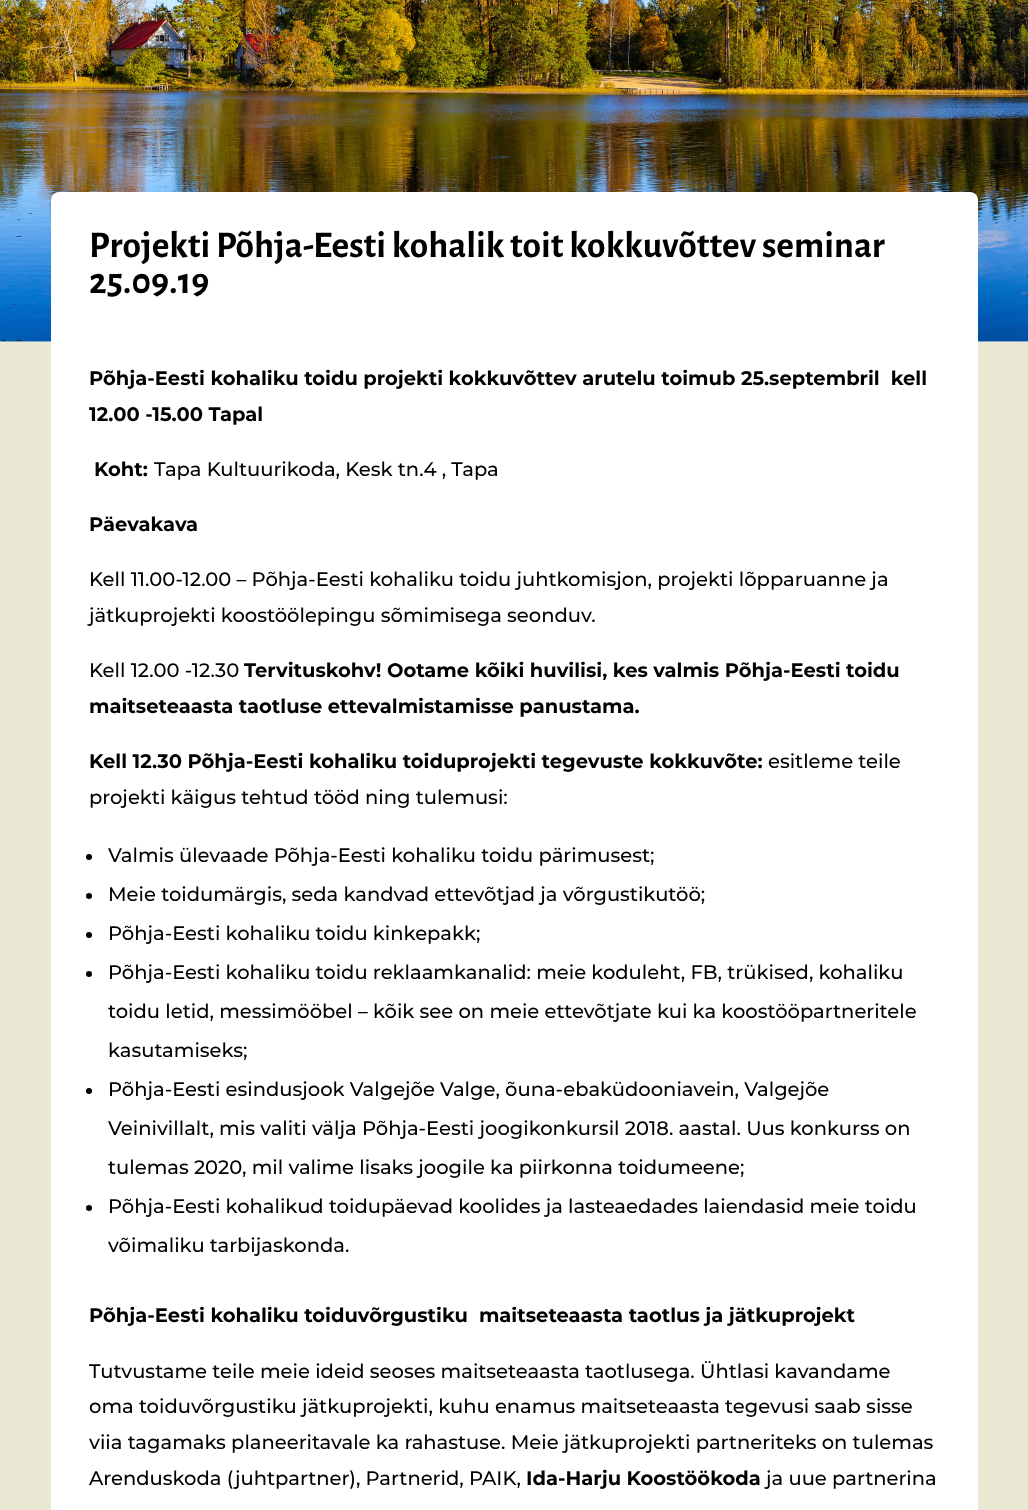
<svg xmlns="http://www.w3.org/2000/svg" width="1028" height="1510">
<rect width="100%" height="100%" fill="#fff"/>
<image x="0" y="0" width="1028" height="342" href="media/1.png"/>
<rect y="342" width="1028" height="1168" fill="#eae9d4"/>
<rect x="51" y="192" width="927" height="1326" rx="8" fill="#fff"/>
<text x="89" y="257" style="font-family:Alegreya Sans;font-size:37.5px;font-weight:bold;fill:#000">Projekti Põhja-Eesti kohalik toit kokkuvõttev seminar</text>
<text x="89" y="293" style="font-family:Alegreya Sans;font-size:37.5px;font-weight:bold;fill:#000">25.09.19</text>
<text x="89" y="385" style="font-family:Montserrat;font-size:19.5px;font-weight:bold;fill:#000" xml:space="preserve">Põhja-Eesti kohaliku toidu projekti kokkuvõttev arutelu toimub 25.septembril  kell</text>
<text x="89" y="421" style="font-family:Montserrat;font-size:19.5px;font-weight:bold;fill:#000">12.00 -15.00 Tapal</text>
<text x="94" y="476" style="font-family:Montserrat;font-size:19.5px;font-weight:bold;fill:#000">Koht:</text>
<text x="154" y="476" style="font-family:Montserrat;font-size:19.5px;font-weight:500;fill:#000">Tapa Kultuurikoda, Kesk tn.4 , Tapa</text>
<text x="89" y="531" style="font-family:Montserrat;font-size:19.5px;font-weight:bold;fill:#000">Päevakava</text>
<text x="89" y="586" style="font-family:Montserrat;font-size:19.5px;font-weight:500;fill:#000">Kell 11.00-12.00 – Põhja-Eesti kohaliku toidu juhtkomisjon, projekti lõpparuanne ja</text>
<text x="89" y="622" style="font-family:Montserrat;font-size:19.5px;font-weight:500;fill:#000">jätkuprojekti koostöölepingu sõmimisega seonduv.</text>
<text x="89" y="677" style="font-family:Montserrat;font-size:19.5px;font-weight:500;fill:#000">Kell 12.00 -12.30</text>
<text x="244" y="677" style="font-family:Montserrat;font-size:19.5px;font-weight:bold;fill:#000">Tervituskohv! Ootame kõiki huvilisi, kes valmis Põhja-Eesti toidu</text>
<text x="89" y="713" style="font-family:Montserrat;font-size:19.5px;font-weight:bold;fill:#000">maitseteaasta taotluse ettevalmistamisse panustama.</text>
<text x="89" y="768" style="font-family:Montserrat;font-size:19.5px;font-weight:bold;fill:#000">Kell 12.30 Põhja-Eesti kohaliku toiduprojekti tegevuste kokkuvõte:</text>
<text x="768" y="768" style="font-family:Montserrat;font-size:19.5px;font-weight:500;fill:#000">esitleme teile</text>
<text x="89" y="804" style="font-family:Montserrat;font-size:19.5px;font-weight:500;fill:#000">projekti käigus tehtud tööd ning tulemusi:</text>
<circle cx="89" cy="857" r="3" fill="#000"/>
<text x="108" y="862" style="font-family:Montserrat;font-size:19.5px;font-weight:500;fill:#000">Valmis ülevaade Põhja-Eesti kohaliku toidu pärimusest;</text>
<circle cx="89" cy="896" r="3" fill="#000"/>
<text x="108" y="901" style="font-family:Montserrat;font-size:19.5px;font-weight:500;fill:#000">Meie toidumärgis, seda kandvad ettevõtjad ja võrgustikutöö;</text>
<circle cx="89" cy="935" r="3" fill="#000"/>
<text x="108" y="940" style="font-family:Montserrat;font-size:19.5px;font-weight:500;fill:#000">Põhja-Eesti kohaliku toidu kinkepakk;</text>
<circle cx="89" cy="974" r="3" fill="#000"/>
<text x="108" y="979" style="font-family:Montserrat;font-size:19.5px;font-weight:500;fill:#000">Põhja-Eesti kohaliku toidu reklaamkanalid: meie koduleht, FB, trükised, kohaliku</text>
<text x="108" y="1018" style="font-family:Montserrat;font-size:19.5px;font-weight:500;fill:#000">toidu letid, messimööbel – kõik see on meie ettevõtjate kui ka koostööpartneritele</text>
<text x="108" y="1057" style="font-family:Montserrat;font-size:19.5px;font-weight:500;fill:#000">kasutamiseks;</text>
<circle cx="89" cy="1091" r="3" fill="#000"/>
<text x="108" y="1096" style="font-family:Montserrat;font-size:19.5px;font-weight:500;fill:#000">Põhja-Eesti esindusjook Valgejõe Valge, õuna-ebaküdooniavein, Valgejõe</text>
<text x="108" y="1135" style="font-family:Montserrat;font-size:19.5px;font-weight:500;fill:#000">Veinivillalt, mis valiti välja Põhja-Eesti joogikonkursil 2018. aastal. Uus konkurss on</text>
<text x="108" y="1174" style="font-family:Montserrat;font-size:19.5px;font-weight:500;fill:#000">tulemas 2020, mil valime lisaks joogile ka piirkonna toidumeene;</text>
<circle cx="89" cy="1208" r="3" fill="#000"/>
<text x="108" y="1213" style="font-family:Montserrat;font-size:19.5px;font-weight:500;fill:#000">Põhja-Eesti kohalikud toidupäevad koolides ja lasteaedades laiendasid meie toidu</text>
<text x="108" y="1252" style="font-family:Montserrat;font-size:19.5px;font-weight:500;fill:#000">võimaliku tarbijaskonda.</text>
<text x="89" y="1322" style="font-family:Montserrat;font-size:19.5px;font-weight:bold;fill:#000" xml:space="preserve">Põhja-Eesti kohaliku toiduvõrgustiku  maitseteaasta taotlus ja jätkuprojekt</text>
<text x="89" y="1378" style="font-family:Montserrat;font-size:19.5px;font-weight:500;fill:#000">Tutvustame teile meie ideid seoses maitseteaasta taotlusega. Ühtlasi kavandame</text>
<text x="89" y="1413" style="font-family:Montserrat;font-size:19.5px;font-weight:500;fill:#000">oma toiduvõrgustiku jätkuprojekti, kuhu enamus maitseteaasta tegevusi saab sisse</text>
<text x="89" y="1449" style="font-family:Montserrat;font-size:19.5px;font-weight:500;fill:#000">viia tagamaks planeeritavale ka rahastuse. Meie jätkuprojekti partneriteks on tulemas</text>
<text x="89" y="1485" style="font-family:Montserrat;font-size:19.5px;font-weight:500;fill:#000">Arenduskoda (juhtpartner), Partnerid, PAIK,</text>
<text x="526" y="1485" style="font-family:Montserrat;font-size:19.5px;font-weight:bold;fill:#000">Ida-Harju Koostöökoda</text>
<text x="766" y="1485" style="font-family:Montserrat;font-size:19.5px;font-weight:500;fill:#000">ja uue partnerina</text>
</svg>
